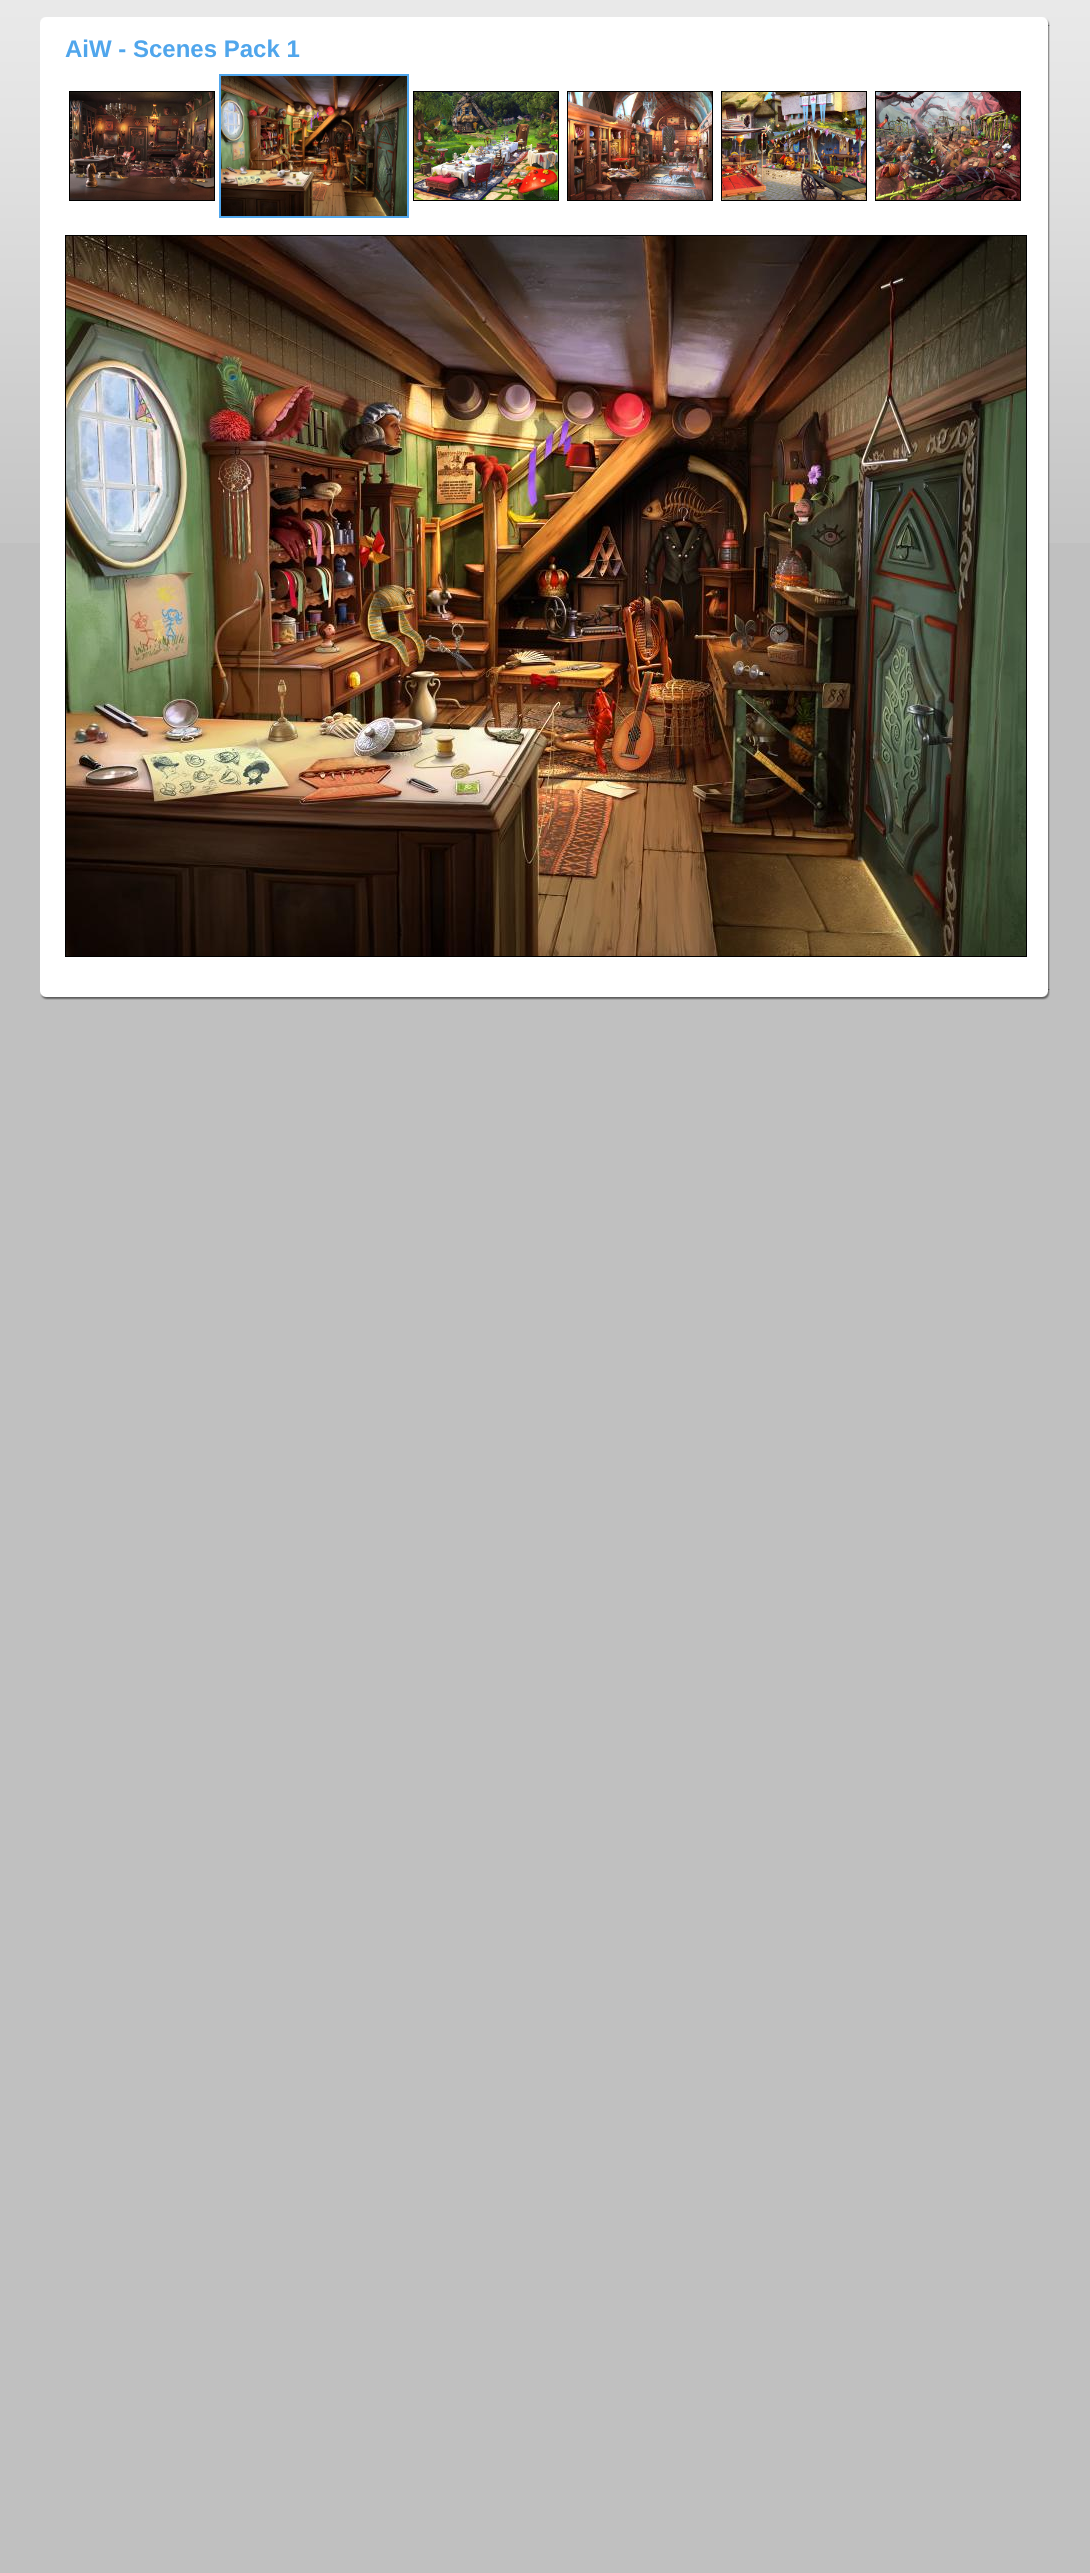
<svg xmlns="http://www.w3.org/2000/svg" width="1090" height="2573">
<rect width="100%" height="100%" fill="#c0c0c0"/>
<image x="0" y="0" width="1090" height="543" href="media/1.png"/>
<image x="40" y="17" width="1010" height="9" href="media/2.png"/>
<image x="40" y="25" width="1010" height="965" href="media/3.png"/>
<text x="65" y="57" style="font-family:Liberation Sans;font-size:24px;font-weight:bold;fill:#50a6ec">AiW - Scenes Pack 1</text>
<rect x="69.5" y="91.5" width="145" height="109" fill="none" stroke="#000"/>
<image x="70" y="92" width="144" height="108" href="media/4.png"/>
<rect x="220" y="75" width="188" height="142" fill="none" stroke="#50a6ec" stroke-width="2"/>
<image x="221" y="76" width="186" height="140" href="media/5.png"/>
<rect x="413.5" y="91.5" width="145" height="109" fill="none" stroke="#000"/>
<image x="414" y="92" width="144" height="108" href="media/6.png"/>
<rect x="567.5" y="91.5" width="145" height="109" fill="none" stroke="#000"/>
<image x="568" y="92" width="144" height="108" href="media/7.png"/>
<rect x="721.5" y="91.5" width="145" height="109" fill="none" stroke="#000"/>
<image x="722" y="92" width="144" height="108" href="media/8.png"/>
<rect x="875.5" y="91.5" width="145" height="109" fill="none" stroke="#000"/>
<image x="876" y="92" width="144" height="108" href="media/9.png"/>
<rect x="65.5" y="235.5" width="961" height="721" fill="none" stroke="#000"/>
<image x="66" y="236" width="960" height="720" href="media/10.png"/>
<image x="40" y="989" width="1010" height="11" href="media/11.png"/>
</svg>
